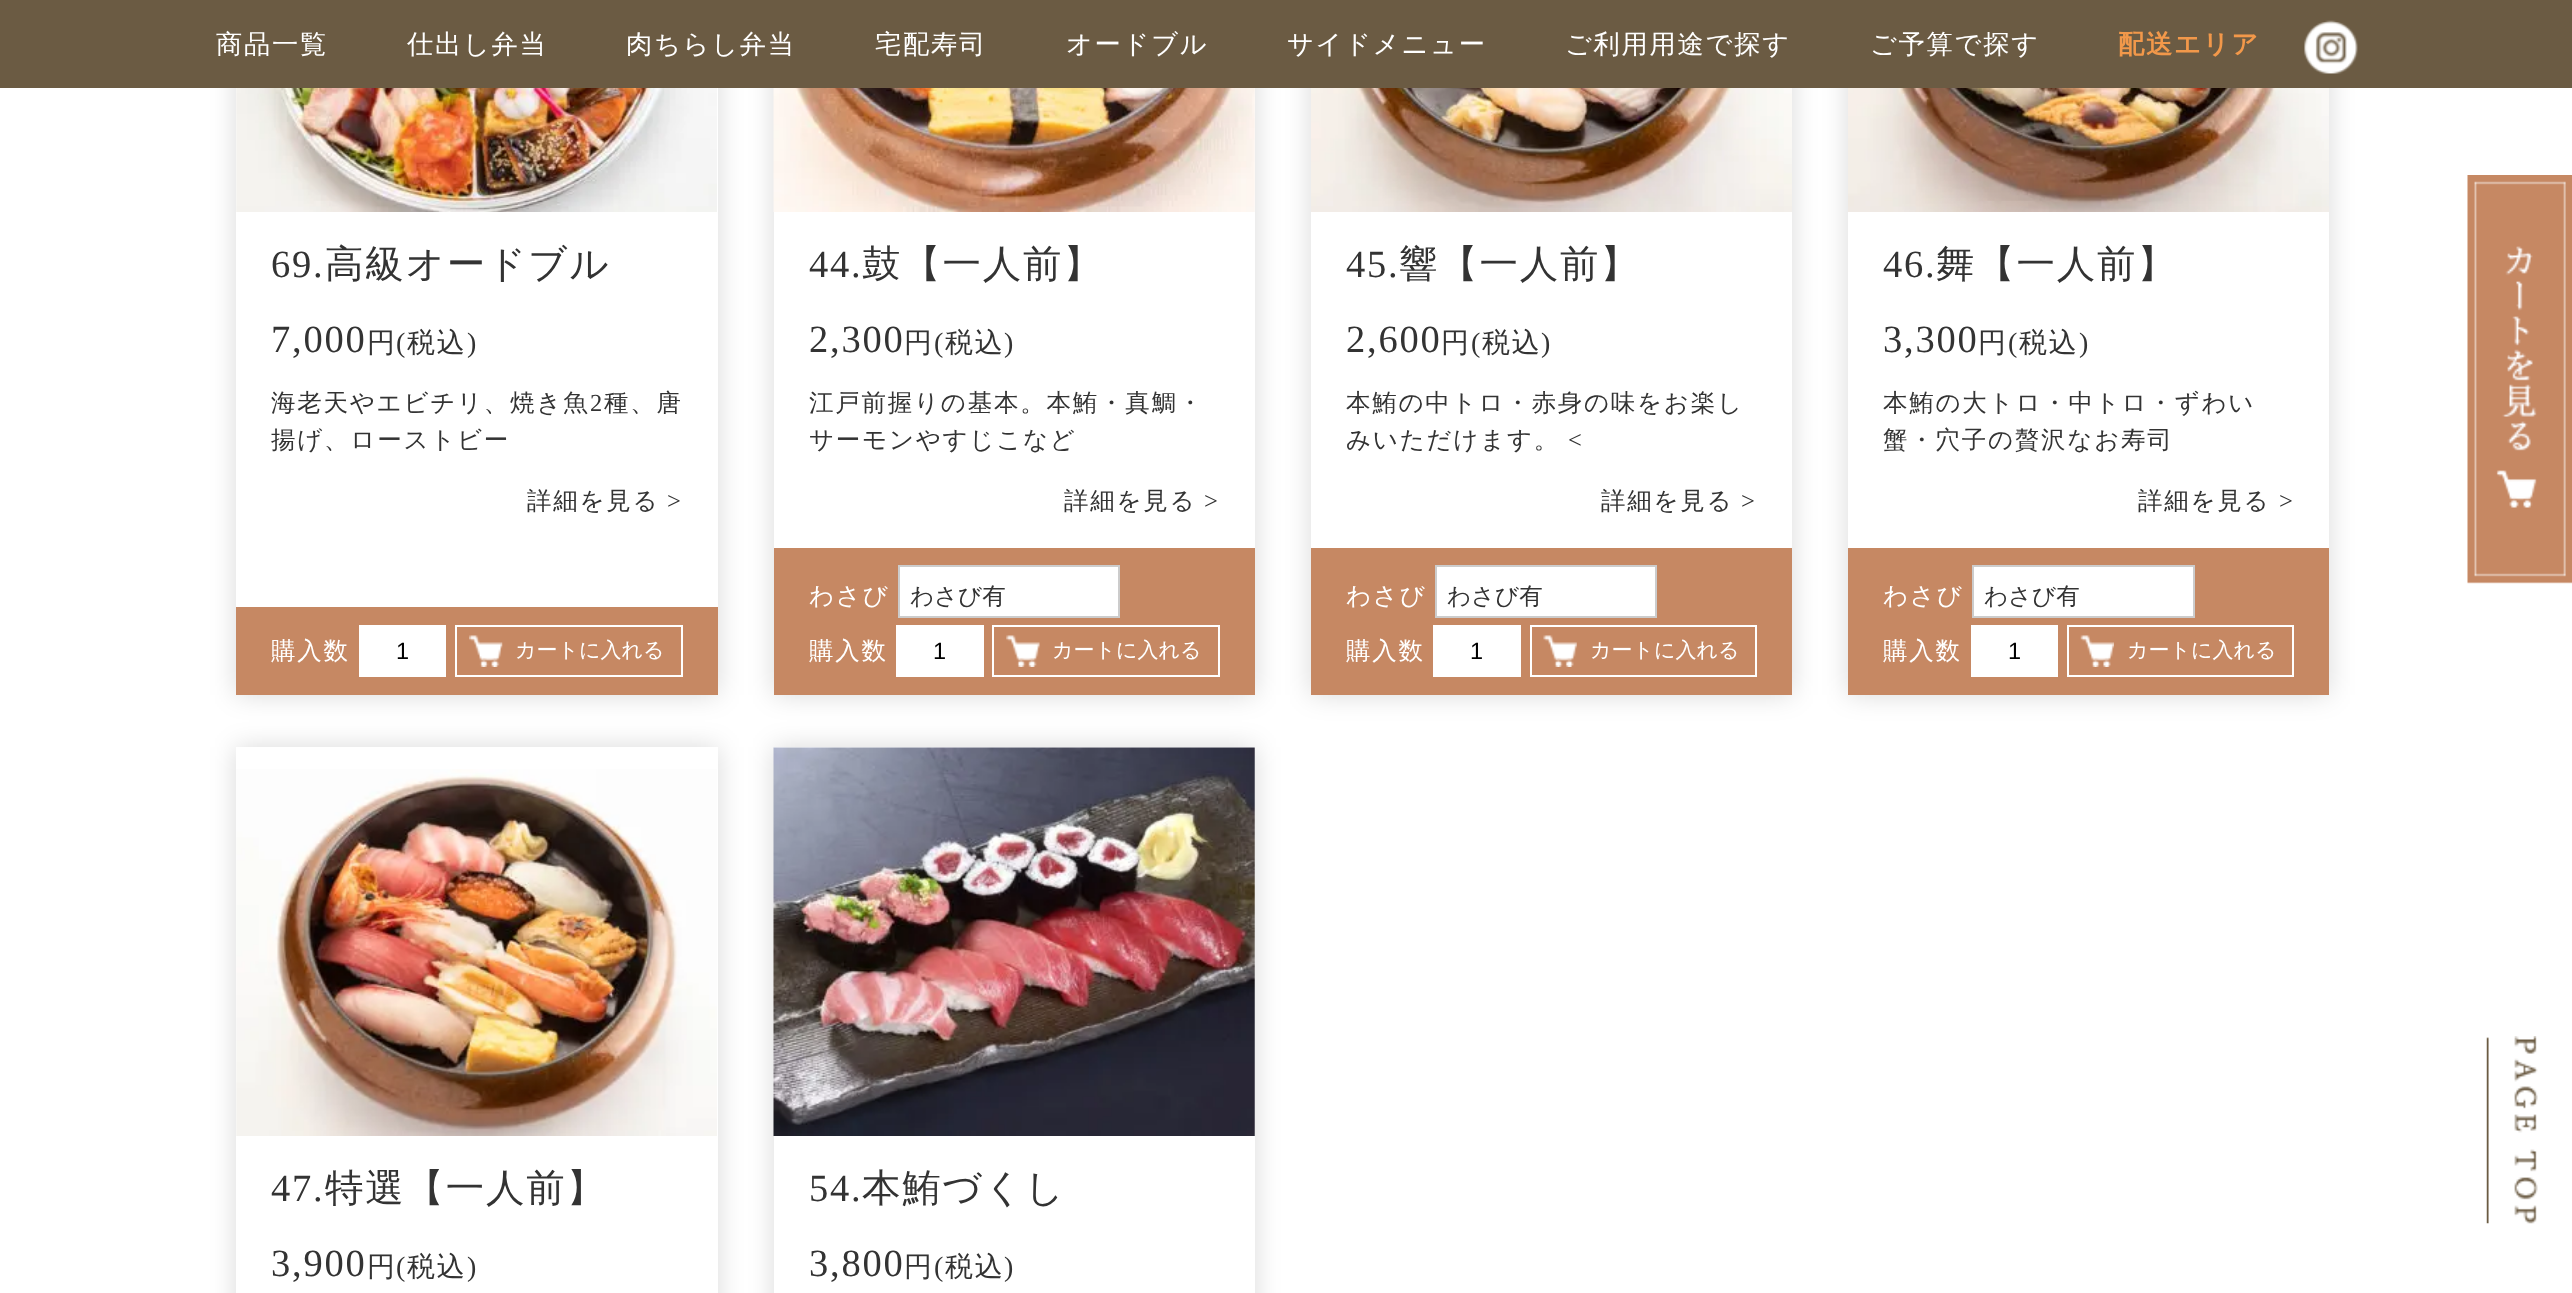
<svg xmlns="http://www.w3.org/2000/svg" width="2572" height="1293">
<defs>
<clipPath id="clip1"><path d="M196 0h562v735h-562zm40-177h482v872h-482z" clip-rule="evenodd"/></clipPath>
<clipPath id="clip2"><path d="M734 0h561v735h-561zm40-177h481v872h-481z" clip-rule="evenodd"/></clipPath>
<clipPath id="clip3"><path d="M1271 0h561v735h-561zm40-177h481v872h-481z" clip-rule="evenodd"/></clipPath>
<clipPath id="clip4"><path d="M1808 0h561v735h-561zm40-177h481v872h-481z" clip-rule="evenodd"/></clipPath>
<clipPath id="clip5"><path d="M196 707h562v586h-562zm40 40h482v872h-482z" clip-rule="evenodd"/></clipPath>
<clipPath id="clip6"><path d="M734 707h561v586h-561zm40 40h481v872h-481z" clip-rule="evenodd"/></clipPath>
</defs>
<rect width="100%" height="100%" fill="#fff"/>
<g clip-path="url(#clip1)">
<rect x="236" y="-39" width="482" height="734" fill="#00000026" filter="blur(13px)"/>
</g>
<g clip-path="url(#clip2)">
<rect x="774" y="-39" width="481" height="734" fill="#00000026" filter="blur(13px)"/>
</g>
<g clip-path="url(#clip3)">
<rect x="1311" y="-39" width="481" height="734" fill="#00000026" filter="blur(13px)"/>
</g>
<g clip-path="url(#clip4)">
<rect x="1848" y="-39" width="481" height="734" fill="#00000026" filter="blur(13px)"/>
</g>
<rect width="2572" height="88" fill="#6b5b43"/>
<text x="216" y="53" style="font-family:WenQuanYi Zen Hei;font-size:26.25px;font-weight:500;letter-spacing:1.75px;fill:#fff">商品一覧</text>
<text x="407" y="53" style="font-family:WenQuanYi Zen Hei;font-size:26.25px;font-weight:500;letter-spacing:1.75px;fill:#fff">仕出し弁当</text>
<text x="626" y="53" style="font-family:WenQuanYi Zen Hei;font-size:26.25px;font-weight:500;letter-spacing:1.75px;fill:#fff">肉ちらし弁当</text>
<text x="875" y="53" style="font-family:WenQuanYi Zen Hei;font-size:26.25px;font-weight:500;letter-spacing:1.75px;fill:#fff">宅配寿司</text>
<text x="1066" y="53" style="font-family:WenQuanYi Zen Hei;font-size:26.25px;font-weight:500;letter-spacing:1.75px;fill:#fff">オードブル</text>
<text x="1287" y="53" style="font-family:WenQuanYi Zen Hei;font-size:26.25px;font-weight:500;letter-spacing:1.75px;fill:#fff">サイドメニュー</text>
<text x="1565" y="53" style="font-family:WenQuanYi Zen Hei;font-size:26.25px;font-weight:500;letter-spacing:1.75px;fill:#fff">ご利用用途で探す</text>
<text x="1870" y="53" style="font-family:WenQuanYi Zen Hei;font-size:26.25px;font-weight:500;letter-spacing:1.75px;fill:#fff">ご予算で探す</text>
<text x="2118" y="53" style="font-family:WenQuanYi Zen Hei;font-size:26.25px;font-weight:bold;letter-spacing:1.75px;fill:#f2984a">配送エリア</text>
<image x="2304" y="20" width="54" height="54" href="media/1.png"/>
<image x="236" y="88" width="481" height="124" href="media/2.png"/>
<text x="271" y="277" style="font-family:Liberation Serif;font-size:38.5px;letter-spacing:1.75px;fill:#333">69.</text>
<text x="325" y="277" style="font-family:WenQuanYi Zen Hei;font-size:38.5px;font-weight:500;letter-spacing:1.75px;fill:#333">高級オードブル</text>
<text x="271" y="352" style="font-family:Liberation Serif;font-size:38.5px;letter-spacing:1.75px;fill:#333">7,000</text>
<text x="367" y="352" style="font-family:WenQuanYi Zen Hei;font-size:28px;font-weight:500;letter-spacing:1.75px;fill:#333">円</text>
<text x="396" y="352" style="font-family:Liberation Serif;font-size:28px;letter-spacing:1.75px;fill:#333">(</text>
<text x="407" y="352" style="font-family:WenQuanYi Zen Hei;font-size:28px;font-weight:500;letter-spacing:1.75px;fill:#333">税込</text>
<text x="467" y="352" style="font-family:Liberation Serif;font-size:28px;letter-spacing:1.75px;fill:#333">)</text>
<text x="271" y="411" style="font-family:WenQuanYi Zen Hei;font-size:24.5px;font-weight:500;letter-spacing:1.75px;fill:#333">海老天やエビチリ、焼き魚</text>
<text x="590" y="411" style="font-family:Liberation Serif;font-size:24.5px;letter-spacing:1.75px;fill:#333">2</text>
<text x="604" y="411" style="font-family:WenQuanYi Zen Hei;font-size:24.5px;font-weight:500;letter-spacing:1.75px;fill:#333">種、唐</text>
<text x="271" y="448" style="font-family:WenQuanYi Zen Hei;font-size:24.5px;font-weight:500;letter-spacing:1.75px;fill:#333">揚げ、ローストビー</text>
<text x="527" y="509" style="font-family:WenQuanYi Zen Hei;font-size:24.5px;font-weight:500;letter-spacing:1.75px;fill:#333">詳細を見る</text>
<text x="667" y="509" style="font-family:Liberation Serif;font-size:24.5px;letter-spacing:1.75px;fill:#333">&gt;</text>
<rect x="236" y="607" width="482" height="88" fill="#c68863"/>
<text x="271" y="659" style="font-family:WenQuanYi Zen Hei;font-size:24.5px;font-weight:500;letter-spacing:1.75px;fill:#fff">購入数</text>
<rect x="359" y="625" width="87" height="52" fill="#fff"/>
<text x="396" y="659" style="font-family:Liberation Sans;font-size:23.5px;fill:#000">1</text>
<image x="469" y="635" width="34" height="32" href="media/3.png"/>
<rect x="456" y="626" width="226" height="50" fill="none" stroke="#fff" stroke-width="2"/>
<text x="515" y="657" style="font-family:WenQuanYi Zen Hei;font-size:21px;font-weight:500;fill:#fff">カートに入れる</text>
<image x="773" y="88" width="482" height="124" href="media/4.png"/>
<text x="809" y="277" style="font-family:Liberation Serif;font-size:38.5px;letter-spacing:1.75px;fill:#333">44.</text>
<text x="862" y="277" style="font-family:WenQuanYi Zen Hei;font-size:38.5px;font-weight:500;letter-spacing:1.75px;fill:#333">鼓【一人前】</text>
<text x="809" y="352" style="font-family:Liberation Serif;font-size:38.5px;letter-spacing:1.75px;fill:#333">2,300</text>
<text x="904" y="352" style="font-family:WenQuanYi Zen Hei;font-size:28px;font-weight:500;letter-spacing:1.75px;fill:#333">円</text>
<text x="934" y="352" style="font-family:Liberation Serif;font-size:28px;letter-spacing:1.75px;fill:#333">(</text>
<text x="945" y="352" style="font-family:WenQuanYi Zen Hei;font-size:28px;font-weight:500;letter-spacing:1.75px;fill:#333">税込</text>
<text x="1004" y="352" style="font-family:Liberation Serif;font-size:28px;letter-spacing:1.75px;fill:#333">)</text>
<text x="809" y="411" style="font-family:WenQuanYi Zen Hei;font-size:24.5px;font-weight:500;letter-spacing:1.75px;fill:#333">江戸前握りの基本。本鮪・真鯛・</text>
<text x="809" y="448" style="font-family:WenQuanYi Zen Hei;font-size:24.5px;font-weight:500;letter-spacing:1.75px;fill:#333">サーモンやすじこなど</text>
<text x="1064" y="509" style="font-family:WenQuanYi Zen Hei;font-size:24.5px;font-weight:500;letter-spacing:1.75px;fill:#333">詳細を見る</text>
<text x="1204" y="509" style="font-family:Liberation Serif;font-size:24.5px;letter-spacing:1.75px;fill:#333">&gt;</text>
<rect x="774" y="548" width="481" height="147" fill="#c68863"/>
<text x="809" y="604" style="font-family:WenQuanYi Zen Hei;font-size:24.5px;font-weight:500;letter-spacing:1.75px;fill:#fff">わさび</text>
<rect x="899" y="566" width="220" height="51" fill="#fff" stroke="#ccc" stroke-width="2"/>
<text x="910" y="604" style="font-family:WenQuanYi Zen Hei;font-size:23.5px;font-weight:500;fill:#333">わさび有</text>
<text x="809" y="659" style="font-family:WenQuanYi Zen Hei;font-size:24.5px;font-weight:500;letter-spacing:1.75px;fill:#fff">購入数</text>
<rect x="896" y="625" width="88" height="52" fill="#fff"/>
<text x="933" y="659" style="font-family:Liberation Sans;font-size:23.5px;fill:#000">1</text>
<image x="1006" y="635" width="34" height="32" href="media/5.png"/>
<rect x="993" y="626" width="226" height="50" fill="none" stroke="#fff" stroke-width="2"/>
<text x="1052" y="657" style="font-family:WenQuanYi Zen Hei;font-size:21px;font-weight:500;fill:#fff">カートに入れる</text>
<image x="1311" y="88" width="481" height="124" href="media/6.png"/>
<text x="1346" y="277" style="font-family:Liberation Serif;font-size:38.5px;letter-spacing:1.75px;fill:#333">45.</text>
<text x="1399" y="277" style="font-family:WenQuanYi Zen Hei;font-size:38.5px;font-weight:500;letter-spacing:1.75px;fill:#333">響【一人前】</text>
<text x="1346" y="352" style="font-family:Liberation Serif;font-size:38.5px;letter-spacing:1.75px;fill:#333">2,600</text>
<text x="1441" y="352" style="font-family:WenQuanYi Zen Hei;font-size:28px;font-weight:500;letter-spacing:1.75px;fill:#333">円</text>
<text x="1471" y="352" style="font-family:Liberation Serif;font-size:28px;letter-spacing:1.75px;fill:#333">(</text>
<text x="1482" y="352" style="font-family:WenQuanYi Zen Hei;font-size:28px;font-weight:500;letter-spacing:1.75px;fill:#333">税込</text>
<text x="1541" y="352" style="font-family:Liberation Serif;font-size:28px;letter-spacing:1.75px;fill:#333">)</text>
<text x="1346" y="411" style="font-family:WenQuanYi Zen Hei;font-size:24.5px;font-weight:500;letter-spacing:1.75px;fill:#333">本鮪の中トロ・赤身の味をお楽し</text>
<text x="1346" y="448" style="font-family:WenQuanYi Zen Hei;font-size:24.5px;font-weight:500;letter-spacing:1.75px;fill:#333">みいただけます。</text>
<text x="1568" y="448" style="font-family:Liberation Serif;font-size:24.5px;letter-spacing:1.75px;fill:#333">&lt;</text>
<text x="1601" y="509" style="font-family:WenQuanYi Zen Hei;font-size:24.5px;font-weight:500;letter-spacing:1.75px;fill:#333">詳細を見る</text>
<text x="1741" y="509" style="font-family:Liberation Serif;font-size:24.5px;letter-spacing:1.75px;fill:#333">&gt;</text>
<rect x="1311" y="548" width="481" height="147" fill="#c68863"/>
<text x="1346" y="604" style="font-family:WenQuanYi Zen Hei;font-size:24.5px;font-weight:500;letter-spacing:1.75px;fill:#fff">わさび</text>
<rect x="1436" y="566" width="220" height="51" fill="#fff" stroke="#ccc" stroke-width="2"/>
<text x="1447" y="604" style="font-family:WenQuanYi Zen Hei;font-size:23.5px;font-weight:500;fill:#333">わさび有</text>
<text x="1346" y="659" style="font-family:WenQuanYi Zen Hei;font-size:24.5px;font-weight:500;letter-spacing:1.75px;fill:#fff">購入数</text>
<rect x="1433" y="625" width="88" height="52" fill="#fff"/>
<text x="1470" y="659" style="font-family:Liberation Sans;font-size:23.5px;fill:#000">1</text>
<image x="1543" y="635" width="34" height="32" href="media/7.png"/>
<rect x="1531" y="626" width="225" height="50" fill="none" stroke="#fff" stroke-width="2"/>
<text x="1590" y="657" style="font-family:WenQuanYi Zen Hei;font-size:21px;font-weight:500;fill:#fff">カートに入れる</text>
<image x="1848" y="88" width="481" height="124" href="media/8.png"/>
<text x="1883" y="277" style="font-family:Liberation Serif;font-size:38.5px;letter-spacing:1.75px;fill:#333">46.</text>
<text x="1936" y="277" style="font-family:WenQuanYi Zen Hei;font-size:38.5px;font-weight:500;letter-spacing:1.75px;fill:#333">舞【一人前】</text>
<text x="1883" y="352" style="font-family:Liberation Serif;font-size:38.5px;letter-spacing:1.75px;fill:#333">3,300</text>
<text x="1978" y="352" style="font-family:WenQuanYi Zen Hei;font-size:28px;font-weight:500;letter-spacing:1.75px;fill:#333">円</text>
<text x="2008" y="352" style="font-family:Liberation Serif;font-size:28px;letter-spacing:1.75px;fill:#333">(</text>
<text x="2019" y="352" style="font-family:WenQuanYi Zen Hei;font-size:28px;font-weight:500;letter-spacing:1.75px;fill:#333">税込</text>
<text x="2079" y="352" style="font-family:Liberation Serif;font-size:28px;letter-spacing:1.75px;fill:#333">)</text>
<text x="1883" y="411" style="font-family:WenQuanYi Zen Hei;font-size:24.5px;font-weight:500;letter-spacing:1.75px;fill:#333">本鮪の大トロ・中トロ・ずわい</text>
<text x="1883" y="448" style="font-family:WenQuanYi Zen Hei;font-size:24.5px;font-weight:500;letter-spacing:1.75px;fill:#333">蟹・穴子の贅沢なお寿司</text>
<text x="2138" y="509" style="font-family:WenQuanYi Zen Hei;font-size:24.5px;font-weight:500;letter-spacing:1.75px;fill:#333">詳細を見る</text>
<text x="2279" y="509" style="font-family:Liberation Serif;font-size:24.5px;letter-spacing:1.75px;fill:#333">&gt;</text>
<rect x="1848" y="548" width="481" height="147" fill="#c68863"/>
<text x="1883" y="604" style="font-family:WenQuanYi Zen Hei;font-size:24.5px;font-weight:500;letter-spacing:1.75px;fill:#fff">わさび</text>
<rect x="1973" y="566" width="221" height="51" fill="#fff" stroke="#ccc" stroke-width="2"/>
<text x="1984" y="604" style="font-family:WenQuanYi Zen Hei;font-size:23.5px;font-weight:500;fill:#333">わさび有</text>
<text x="1883" y="659" style="font-family:WenQuanYi Zen Hei;font-size:24.5px;font-weight:500;letter-spacing:1.75px;fill:#fff">購入数</text>
<rect x="1971" y="625" width="87" height="52" fill="#fff"/>
<text x="2008" y="659" style="font-family:Liberation Sans;font-size:23.5px;fill:#000">1</text>
<image x="2080" y="635" width="34" height="32" href="media/9.png"/>
<rect x="2068" y="626" width="225" height="50" fill="none" stroke="#fff" stroke-width="2"/>
<text x="2127" y="657" style="font-family:WenQuanYi Zen Hei;font-size:21px;font-weight:500;fill:#fff">カートに入れる</text>
<g clip-path="url(#clip5)">
<rect x="236" y="747" width="482" height="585" fill="#00000026" filter="blur(13px)"/>
</g>
<image x="236" y="769" width="481" height="367" href="media/10.png"/>
<text x="271" y="1201" style="font-family:Liberation Serif;font-size:38.5px;letter-spacing:1.75px;fill:#333">47.</text>
<text x="325" y="1201" style="font-family:WenQuanYi Zen Hei;font-size:38.5px;font-weight:500;letter-spacing:1.75px;fill:#333">特選【一人前】</text>
<text x="271" y="1276" style="font-family:Liberation Serif;font-size:38.5px;letter-spacing:1.75px;fill:#333">3,900</text>
<text x="367" y="1276" style="font-family:WenQuanYi Zen Hei;font-size:28px;font-weight:500;letter-spacing:1.75px;fill:#333">円</text>
<text x="396" y="1276" style="font-family:Liberation Serif;font-size:28px;letter-spacing:1.75px;fill:#333">(</text>
<text x="407" y="1276" style="font-family:WenQuanYi Zen Hei;font-size:28px;font-weight:500;letter-spacing:1.75px;fill:#333">税込</text>
<text x="467" y="1276" style="font-family:Liberation Serif;font-size:28px;letter-spacing:1.75px;fill:#333">)</text>
<g clip-path="url(#clip6)">
<rect x="774" y="747" width="481" height="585" fill="#00000026" filter="blur(13px)"/>
</g>
<image x="773" y="747" width="482" height="389" href="media/11.png"/>
<text x="809" y="1201" style="font-family:Liberation Serif;font-size:38.5px;letter-spacing:1.75px;fill:#333">54.</text>
<text x="862" y="1201" style="font-family:WenQuanYi Zen Hei;font-size:38.5px;font-weight:500;letter-spacing:1.75px;fill:#333">本鮪づくし</text>
<text x="809" y="1276" style="font-family:Liberation Serif;font-size:38.5px;letter-spacing:1.75px;fill:#333">3,800</text>
<text x="904" y="1276" style="font-family:WenQuanYi Zen Hei;font-size:28px;font-weight:500;letter-spacing:1.75px;fill:#333">円</text>
<text x="934" y="1276" style="font-family:Liberation Serif;font-size:28px;letter-spacing:1.75px;fill:#333">(</text>
<text x="945" y="1276" style="font-family:WenQuanYi Zen Hei;font-size:28px;font-weight:500;letter-spacing:1.75px;fill:#333">税込</text>
<text x="1004" y="1276" style="font-family:Liberation Serif;font-size:28px;letter-spacing:1.75px;fill:#333">)</text>
<image x="2467" y="175" width="105" height="409" href="media/12.png"/>
<image x="2486" y="1036" width="52" height="188" href="media/13.png"/>
</svg>
